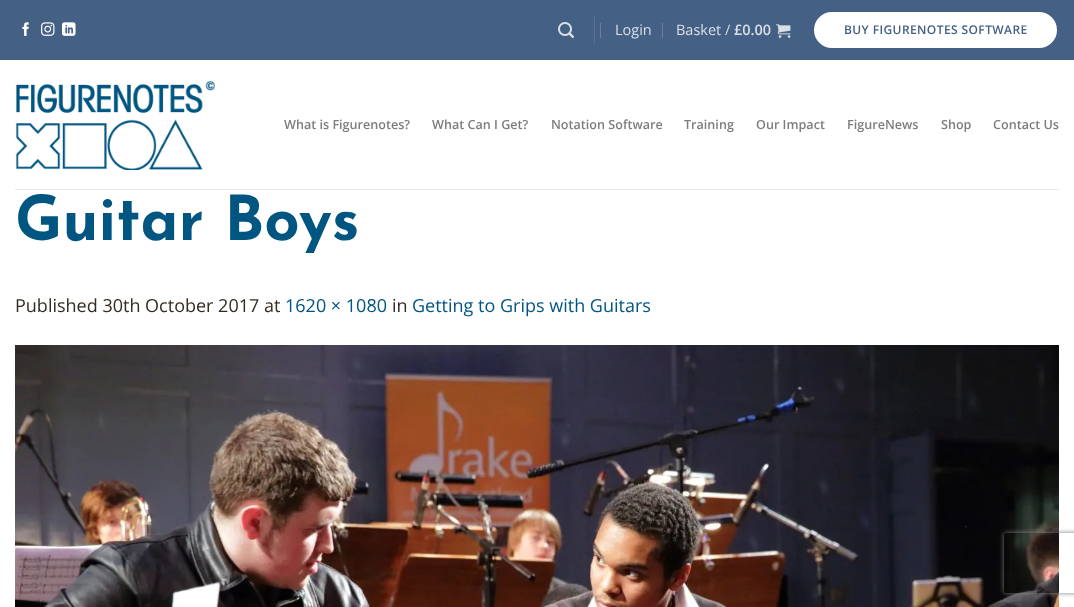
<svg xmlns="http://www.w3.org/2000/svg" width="1074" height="607">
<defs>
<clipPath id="clip1"><path d="M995 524h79v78h-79zm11 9h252c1 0 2 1 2 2v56c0 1-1 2-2 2h-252c-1 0-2-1-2-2v-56c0-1 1-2 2-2z" clip-rule="evenodd"/></clipPath>
</defs>
<rect width="100%" height="100%" fill="#fff"/>
<rect width="1074" height="60" fill="#446084"/>
<image x="22" y="22" width="7" height="14" href="media/1.png"/>
<image x="41" y="22" width="14" height="14" href="media/2.png"/>
<image x="62" y="22" width="14" height="14" href="media/3.png"/>
<image x="558" y="22" width="16" height="16" href="media/4.png"/>
<rect x="594" y="15" width="1" height="30" fill="#577090"/>
<rect x="600" y="23" width="1" height="15" fill="#69809d"/>
<text x="615" y="35" style="font-family:Open Sans;font-size:14.5px;fill:#dadfe6">Login</text>
<rect x="662" y="23" width="1" height="15" fill="#69809d"/>
<text x="676" y="35" style="font-family:Open Sans;font-size:14.5px;fill:#dadfe6">Basket /</text>
<text x="734" y="35" style="font-family:Open Sans;font-size:14.5px;font-weight:600;fill:#dadfe6">£0.00</text>
<image x="776" y="24" width="15" height="14" href="media/5.png"/>
<rect x="813" y="11" width="245" height="38" rx="19" fill="#fff" stroke="#446084" stroke-width="2"/>
<text x="844" y="34" style="font-family:Open Sans;font-size:12px;font-weight:600;letter-spacing:0.4px;fill:#446084">BUY FIGURENOTES SOFTWARE</text>
<image x="15" y="80" width="200" height="90" href="media/6.png"/>
<text x="284" y="129" style="font-family:Open Sans;font-size:12.6px;font-weight:600;fill:#7d7d7d">What is Figurenotes?</text>
<text x="432" y="129" style="font-family:Open Sans;font-size:12.6px;font-weight:600;fill:#7d7d7d">What Can I Get?</text>
<text x="551" y="129" style="font-family:Open Sans;font-size:12.6px;font-weight:600;fill:#7d7d7d">Notation Software</text>
<text x="684" y="129" style="font-family:Open Sans;font-size:12.6px;font-weight:600;fill:#7d7d7d">Training</text>
<text x="756" y="129" style="font-family:Open Sans;font-size:12.6px;font-weight:600;fill:#7d7d7d">Our Impact</text>
<text x="847" y="129" style="font-family:Open Sans;font-size:12.6px;font-weight:600;fill:#7d7d7d">FigureNews</text>
<text x="941" y="129" style="font-family:Open Sans;font-size:12.6px;font-weight:600;fill:#7d7d7d">Shop</text>
<text x="993" y="129" style="font-family:Open Sans;font-size:12.6px;font-weight:600;fill:#7d7d7d">Contact Us</text>
<rect x="15" y="189" width="1044" height="1" fill="#ebeae9"/>
<text x="15" y="240" style="font-family:Josefin Sans;font-size:62px;font-weight:bold;fill:#005581">Guitar Boys</text>
<text x="15" y="312" style="font-family:Open Sans;font-size:18px;fill:#332b24">Published 30th October 2017 at</text>
<text x="285" y="312" style="font-family:Open Sans;font-size:18px;fill:#005581">1620 × 1080</text>
<text x="392" y="312" style="font-family:Open Sans;font-size:18px;fill:#332b24">in</text>
<text x="412" y="312" style="font-family:Open Sans;font-size:18px;fill:#005581">Getting to Grips with Guitars</text>
<image x="15" y="345" width="1044" height="262" href="media/7.png"/>
<g clip-path="url(#clip1)">
<rect x="1004" y="533" width="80" height="60" rx="2" fill="#808080" filter="blur(2.5px)"/>
</g>
</svg>
